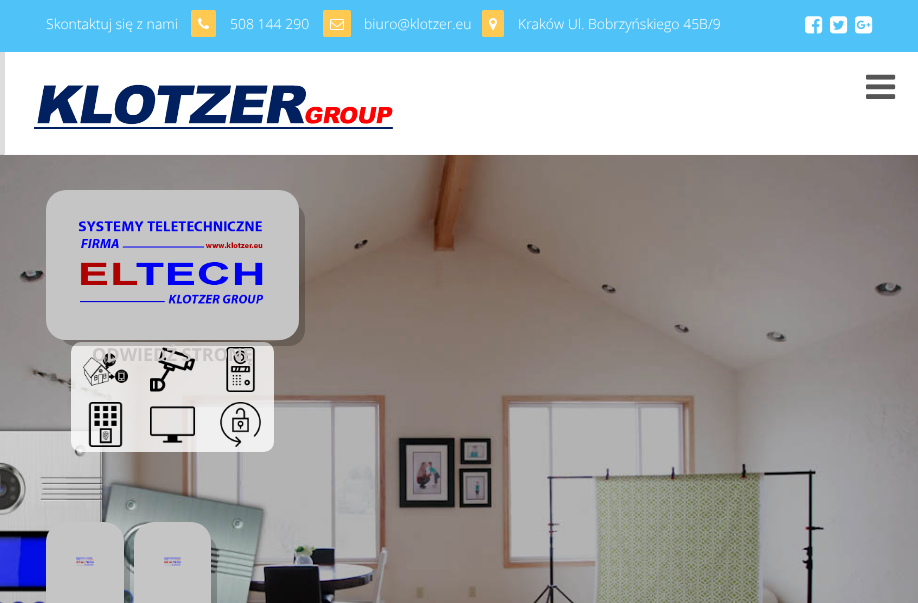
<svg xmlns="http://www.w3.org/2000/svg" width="918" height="603">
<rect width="100%" height="100%" fill="#fff"/>
<rect width="918" height="52" fill="#4fc3f7"/>
<text x="46" y="29" style="font-family:Open Sans;font-size:14px;font-weight:300;fill:#fff">Skontaktuj się z nami</text>
<rect x="191" y="10" width="25" height="27" rx="2" fill="#ffc952"/>
<image x="198" y="18" width="11" height="11" href="media/1.png"/>
<text x="230" y="29" style="font-family:Open Sans;font-size:14px;font-weight:300;fill:#fff">508 144 290</text>
<rect x="323" y="10" width="28" height="27" rx="2" fill="#ffc952"/>
<image x="330" y="19" width="14" height="11" href="media/2.png"/>
<text x="364" y="29" style="font-family:Open Sans;font-size:14px;font-weight:300;fill:#fff">biuro@klotzer.eu</text>
<rect x="482" y="10" width="22" height="27" rx="2" fill="#ffc952"/>
<image x="489" y="18" width="8" height="12" href="media/3.png"/>
<text x="518" y="29" style="font-family:Open Sans;font-size:14px;font-weight:300;fill:#fff">Kraków Ul. Bobrzyńskiego 45B/9</text>
<image x="805" y="16" width="18" height="18" href="media/4.png"/>
<image x="830" y="16" width="18" height="18" href="media/5.png"/>
<image x="855" y="16" width="18" height="18" href="media/6.png"/>
<image x="0" y="154" width="918" height="449" href="media/9.png"/>
<path d="M918 155h-918l5-1h913z" fill="#f9f9f9"/>
<path d="M0 155v-103h5v102z" fill="#ddd"/>
<image x="34" y="84" width="359" height="45" href="media/7.png"/>
<image x="866" y="74" width="30" height="25" href="media/8.png"/>
<rect x="71" y="342" width="203" height="110" rx="10" fill="#ffffffcc"/>
<image x="83" y="353" width="45" height="33" href="media/10.png"/>
<image x="150" y="347" width="45" height="45" href="media/11.png"/>
<image x="226" y="347" width="30" height="45" href="media/12.png"/>
<image x="88" y="402" width="35" height="45" href="media/13.png"/>
<image x="150" y="406" width="45" height="37" href="media/14.png"/>
<image x="220" y="402" width="41" height="45" href="media/15.png"/>
<path d="M63 340c3 4 8 6 13 6h213c9 0 16-7 16-16v-110c0-5-2-10-6-13v95v22c-5 24-41 16-55 16z" fill="#00000036"/>
<rect x="46" y="190" width="253" height="150" rx="20" fill="#c5c5c5"/>
<image x="78" y="221" width="185" height="83" href="media/16.png"/>
<text x="92" y="361" style="font-family:Open Sans;font-size:18px;font-weight:bold;fill:#c7c4c3">ODWIEDŹ STRONĘ</text>
<path d="M63 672c3 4 8 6 13 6h38c9 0 16-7 16-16v-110c0-5-2-10-6-13v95c0 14 3 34-16 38z" fill="#00000036"/>
<rect x="46" y="522" width="78" height="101" rx="20" fill="#c5c5c5"/>
<image x="76" y="557" width="18" height="9" href="media/17.png"/>
<path d="M151 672c3 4 8 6 13 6h37c9 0 16-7 16-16v-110c0-5-2-10-6-13v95c0 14 3 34-16 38z" fill="#00000036"/>
<rect x="134" y="522" width="77" height="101" rx="20" fill="#c5c5c5"/>
<image x="164" y="557" width="17" height="9" href="media/18.png"/>
</svg>
